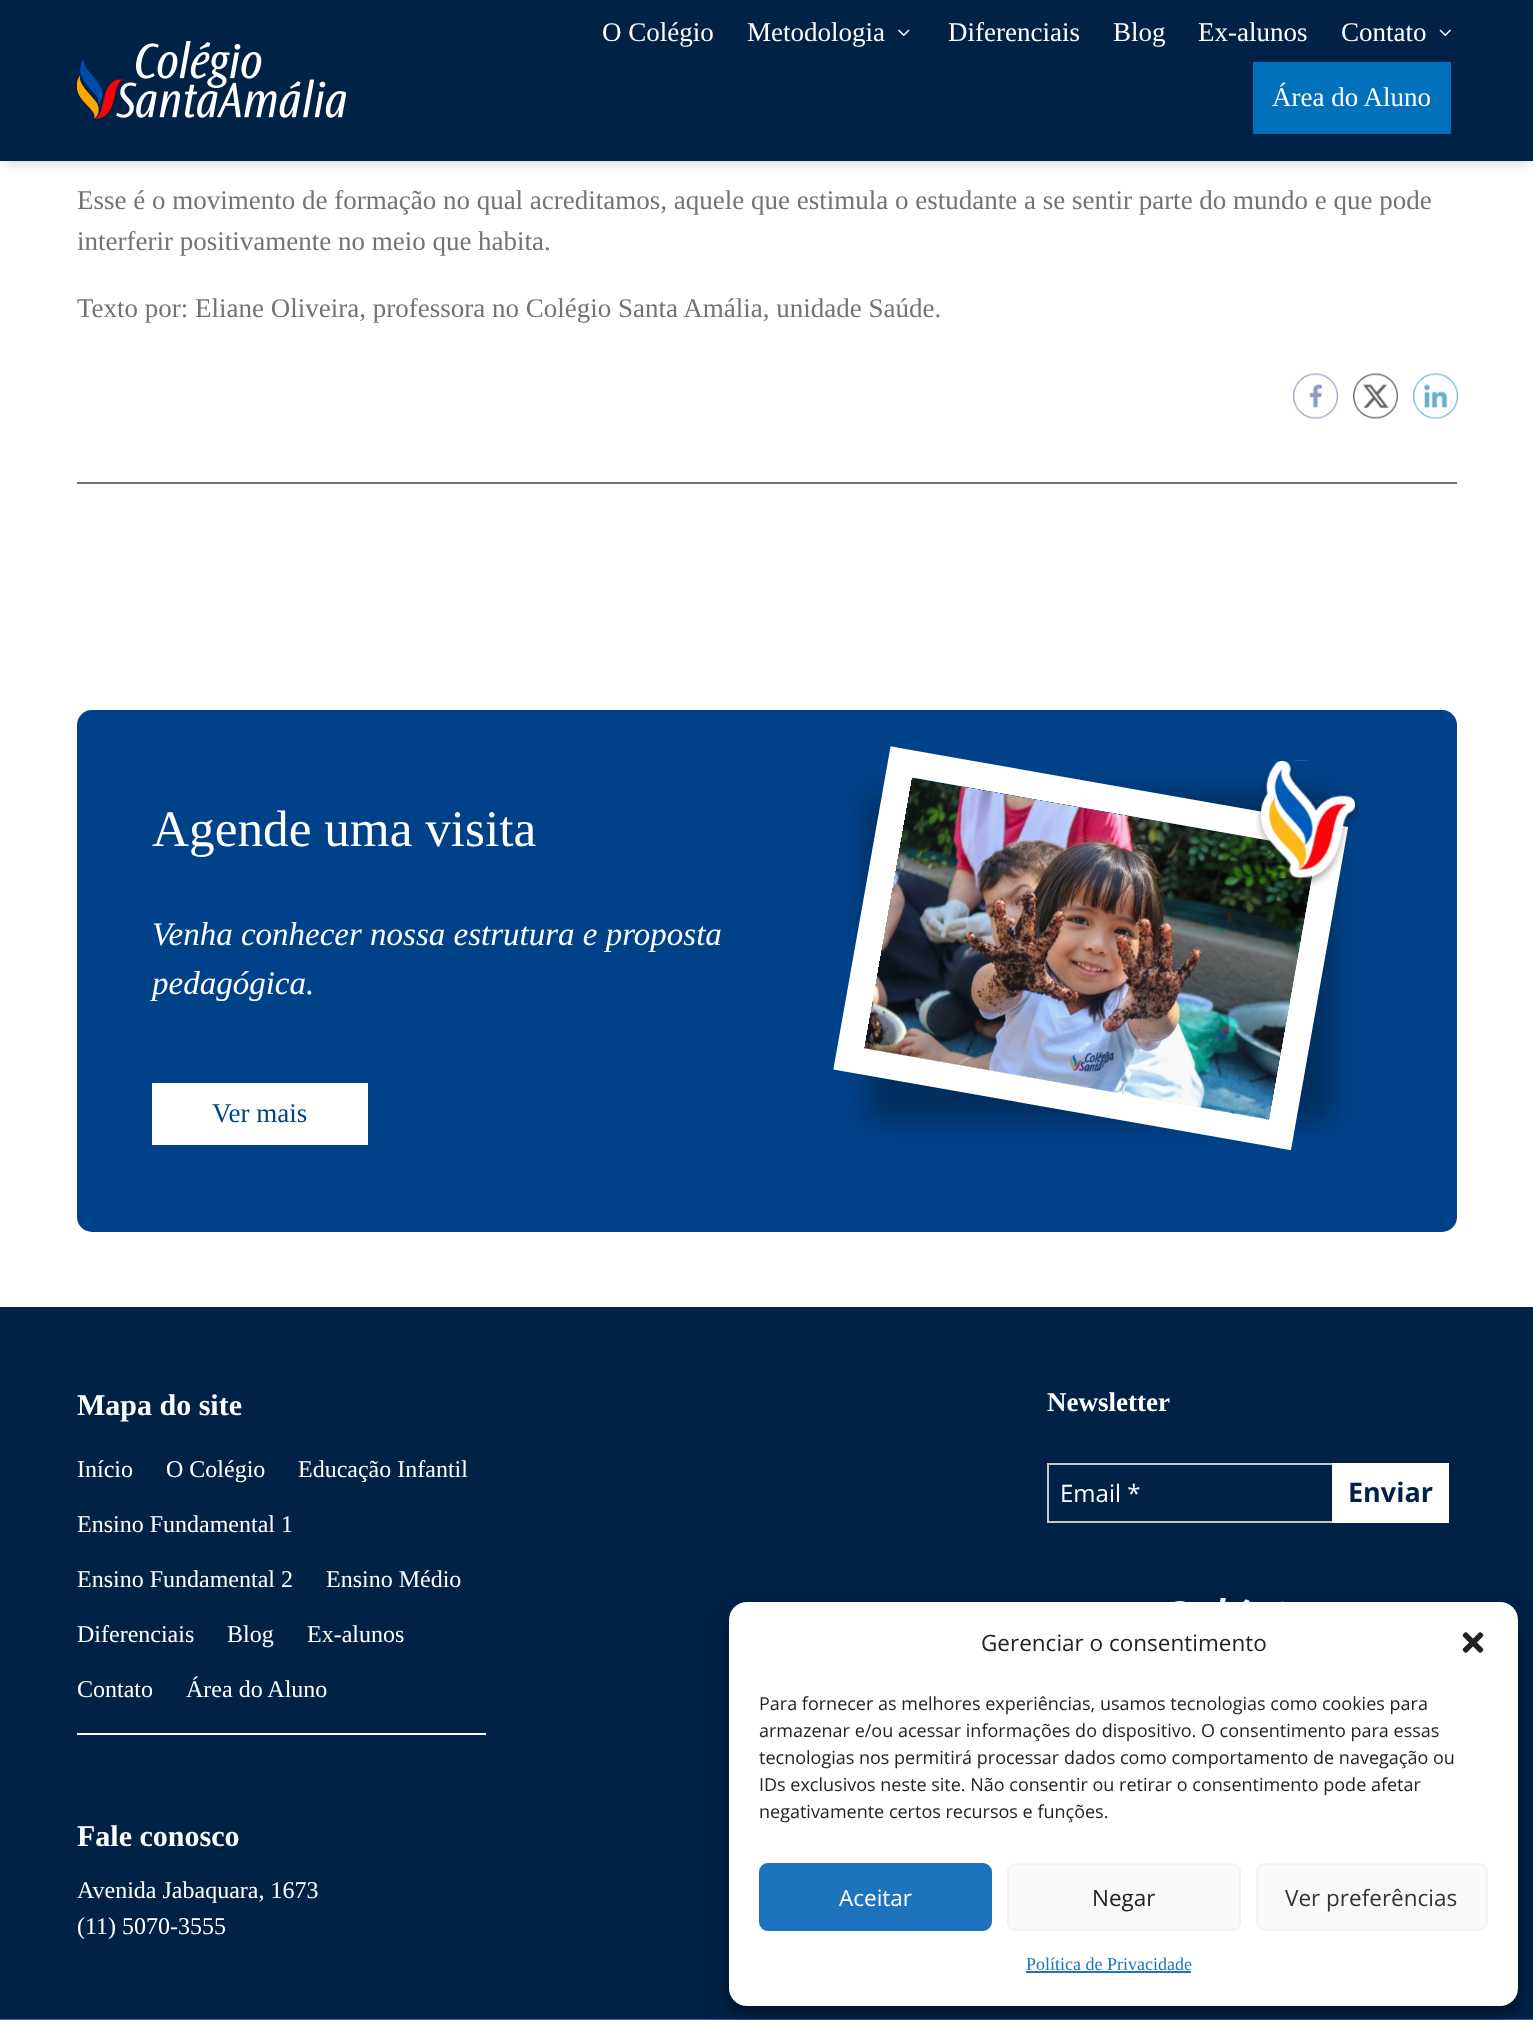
<svg xmlns="http://www.w3.org/2000/svg" width="1533" height="2020">
<rect width="100%" height="100%" fill="#fff"/>
<rect x="3" y="5" width="1527" height="154" fill="#0000004d" filter="blur(7.5px)"/>
<rect width="1533" height="161" fill="#002247"/>
<image x="77" y="41" width="269" height="78" href="media/1.png"/>
<text x="602" y="41" style="font-family:Liberation Serif;font-size:27px;fill:#fff">O Colégio</text>
<text x="747" y="41" style="font-family:Liberation Serif;font-size:27px;fill:#fff">Metodologia</text>
<image x="898" y="29" width="12" height="7" href="media/2.png"/>
<text x="948" y="41" style="font-family:Liberation Serif;font-size:27px;fill:#fff">Diferenciais</text>
<text x="1113" y="41" style="font-family:Liberation Serif;font-size:27px;fill:#fff">Blog</text>
<text x="1198" y="41" style="font-family:Liberation Serif;font-size:27px;fill:#fff">Ex-alunos</text>
<text x="1341" y="41" style="font-family:Liberation Serif;font-size:27px;fill:#fff">Contato</text>
<image x="1439" y="29" width="12" height="7" href="media/3.png"/>
<rect x="1253" y="62" width="198" height="72" fill="#0071ba"/>
<text x="1272" y="106" style="font-family:Liberation Serif;font-size:27px;fill:#fff">Área do Aluno</text>
<text x="77" y="209" style="font-family:Liberation Serif;font-size:27px;fill:#737373">Esse é o movimento de formação no qual acreditamos, aquele que estimula o estudante a se sentir parte do mundo e que pode</text>
<text x="77" y="250" style="font-family:Liberation Serif;font-size:27px;fill:#737373">interferir positivamente no meio que habita.</text>
<text x="77" y="317" style="font-family:Liberation Serif;font-size:27px;fill:#737373">Texto por: Eliane Oliveira, professora no Colégio Santa Amália, unidade Saúde.</text>
<image x="1293" y="373" width="45" height="46" href="media/4.png"/>
<image x="1353" y="373" width="45" height="46" href="media/5.png"/>
<image x="1413" y="373" width="45" height="46" href="media/6.png"/>
<rect x="77" y="482" width="1380" height="2" fill="#737373"/>
<rect x="77" y="710" width="1380" height="522" rx="15" fill="#004289"/>
<text x="152" y="846" style="font-family:Liberation Serif;font-size:51.25px;fill:#fff">Agende uma visita</text>
<text x="152" y="945" style="font-family:Liberation Serif;font-size:33px;font-style:italic;fill:#fff">Venha conhecer nossa estrutura e proposta</text>
<text x="152" y="994" style="font-family:Liberation Serif;font-size:33px;font-style:italic;fill:#fff">pedagógica.</text>
<rect x="152" y="1083" width="216" height="62" fill="#fff"/>
<text x="212" y="1122" style="font-family:Liberation Serif;font-size:27px;fill:#004289">Ver mais</text>
<rect x="867" y="794" width="465" height="327" fill="#0000004d" filter="blur(13.5px)"/>
<path d="M901.5 762l431 76l-52.5 296.5l-431-76z" fill="none" stroke="#fff" stroke-width="27"/>
<image x="864" y="778" width="448" height="342" href="media/7.png"/>
<image x="1256" y="760" width="103" height="127" href="media/8.png"/>
<rect y="1307" width="1533" height="712" fill="#002247"/>
<text x="77" y="1415" style="font-family:Liberation Serif;font-size:30px;font-weight:bold;fill:#fff">Mapa do site</text>
<text x="77" y="1477" style="font-family:Liberation Serif;font-size:24px;fill:#fff">Início</text>
<text x="166" y="1477" style="font-family:Liberation Serif;font-size:24px;fill:#fff">O Colégio</text>
<text x="298" y="1477" style="font-family:Liberation Serif;font-size:24px;fill:#fff">Educação Infantil</text>
<text x="77" y="1532" style="font-family:Liberation Serif;font-size:24px;fill:#fff">Ensino Fundamental 1</text>
<text x="77" y="1587" style="font-family:Liberation Serif;font-size:24px;fill:#fff">Ensino Fundamental 2</text>
<text x="326" y="1587" style="font-family:Liberation Serif;font-size:24px;fill:#fff">Ensino Médio</text>
<text x="77" y="1642" style="font-family:Liberation Serif;font-size:24px;fill:#fff">Diferenciais</text>
<text x="227" y="1642" style="font-family:Liberation Serif;font-size:24px;fill:#fff">Blog</text>
<text x="307" y="1642" style="font-family:Liberation Serif;font-size:24px;fill:#fff">Ex-alunos</text>
<text x="77" y="1697" style="font-family:Liberation Serif;font-size:24px;fill:#fff">Contato</text>
<text x="186" y="1697" style="font-family:Liberation Serif;font-size:24px;fill:#fff">Área do Aluno</text>
<rect x="77" y="1733" width="409" height="2" fill="#fff"/>
<text x="77" y="1846" style="font-family:Liberation Serif;font-size:30px;font-weight:bold;fill:#fff">Fale conosco</text>
<text x="77" y="1898" style="font-family:Liberation Serif;font-size:24px;fill:#fff">Avenida Jabaquara, 1673</text>
<text x="77" y="1934" style="font-family:Liberation Serif;font-size:24px;fill:#fff">(11) 5070-3555</text>
<text x="1047" y="1411" style="font-family:Liberation Serif;font-size:27px;font-weight:bold;fill:#fff">Newsletter</text>
<rect x="1048" y="1464" width="291" height="58" fill="none" stroke="#c8c8c8" stroke-width="2"/>
<text x="1060" y="1502" style="font-family:Open Sans;font-size:24px;fill:#fff">Email *</text>
<rect x="1332" y="1463" width="117" height="60" fill="#fff"/>
<text x="1348" y="1502" style="font-family:Open Sans;font-size:27px;font-weight:bold;fill:#002247">Enviar</text>
<image x="1174" y="1598" width="110" height="4" href="media/9.png"/>
<rect y="2019" width="1533" height="1" fill="#0071ba"/>
<rect x="729" y="1611" width="789" height="404" rx="18" fill="#0000003b" filter="blur(4.5px)"/>
<rect x="729" y="1617" width="789" height="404" rx="18" fill="#00000030" filter="blur(15px)"/>
<rect x="1100" y="1928" width="403" height="69" rx="34.5" fill="#0000004d" filter="blur(7.5px)"/>
<rect x="729" y="1602" width="789" height="404" rx="18" fill="#fff"/>
<text x="981" y="1651" style="font-family:Open Sans;font-size:22.5px;fill:#222">Gerenciar o consentimento</text>
<image x="1462" y="1632" width="22" height="21" href="media/10.png"/>
<text x="759" y="1710" style="font-family:Open Sans;font-size:18px;fill:#222">Para fornecer as melhores experiências, usamos tecnologias como cookies para</text>
<text x="759" y="1737" style="font-family:Open Sans;font-size:18px;fill:#222">armazenar e/ou acessar informações do dispositivo. O consentimento para essas</text>
<text x="759" y="1764" style="font-family:Open Sans;font-size:18px;fill:#222">tecnologias nos permitirá processar dados como comportamento de navegação ou</text>
<text x="759" y="1791" style="font-family:Open Sans;font-size:18px;fill:#222">IDs exclusivos neste site. Não consentir ou retirar o consentimento pode afetar</text>
<text x="759" y="1818" style="font-family:Open Sans;font-size:18px;fill:#222">negativamente certos recursos e funções.</text>
<rect x="760" y="1864" width="231" height="66" rx="8" fill="#1e73be" stroke="#1e73be" stroke-width="2"/>
<text x="839" y="1906" style="font-family:Open Sans;font-size:22.5px;fill:#fff">Aceitar</text>
<rect x="1008" y="1864" width="232" height="66" rx="8" fill="#f9f9f9" stroke="#f2f2f2" stroke-width="2"/>
<text x="1092" y="1906" style="font-family:Open Sans;font-size:22.5px;fill:#222">Negar</text>
<rect x="1257" y="1864" width="230" height="66" rx="8" fill="#f9f9f9" stroke="#f2f2f2" stroke-width="2"/>
<text x="1285" y="1906" style="font-family:Open Sans;font-size:22.5px;fill:#333">Ver preferências</text>
<text x="1026" y="1970" style="font-family:Liberation Serif;font-size:18px;fill:#1e73be">Política de Privacidade</text>
<rect x="1026" y="1971" width="165" height="2" fill="#1e73be"/>
</svg>
